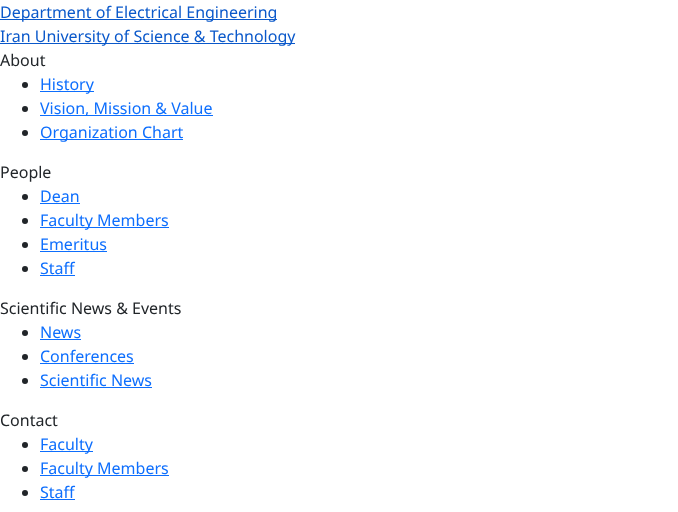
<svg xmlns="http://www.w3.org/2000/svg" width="678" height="512">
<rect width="100%" height="100%" fill="#fff"/>
<rect y="19" width="277" height="1" fill="#0a58ca"/>
<text x="0" y="18" style="font-family:Noto Sans;font-size:16px;fill:#0a58ca">Department of Electrical Engineering</text>
<rect y="43" width="295" height="1" fill="#0a58ca"/>
<text x="0" y="42" style="font-family:Noto Sans;font-size:16px;fill:#0a58ca">Iran University of Science &amp; Technology</text>
<text x="0" y="66" style="font-family:Noto Sans;font-size:16px;fill:#212529">About</text>
<circle cx="25" cy="85" r="3" fill="#212529"/>
<rect x="40" y="91" width="54" height="1" fill="#0d6efd"/>
<text x="40" y="90" style="font-family:Noto Sans;font-size:16px;fill:#0d6efd">History</text>
<circle cx="25" cy="109" r="3" fill="#212529"/>
<rect x="40" y="115" width="173" height="1" fill="#0d6efd"/>
<text x="40" y="114" style="font-family:Noto Sans;font-size:16px;fill:#0d6efd">Vision, Mission &amp; Value</text>
<circle cx="25" cy="133" r="3" fill="#212529"/>
<rect x="40" y="139" width="143" height="1" fill="#0d6efd"/>
<text x="40" y="138" style="font-family:Noto Sans;font-size:16px;fill:#0d6efd">Organization Chart</text>
<text x="0" y="178" style="font-family:Noto Sans;font-size:16px;fill:#212529">People</text>
<circle cx="25" cy="197" r="3" fill="#212529"/>
<text x="40" y="202" style="font-family:Noto Sans;font-size:16px;fill:#0d6efd">Dean</text>
<rect x="40" y="203" width="40" height="1" fill="#0d6efd"/>
<circle cx="25" cy="221" r="3" fill="#212529"/>
<rect x="40" y="227" width="129" height="1" fill="#0d6efd"/>
<text x="40" y="226" style="font-family:Noto Sans;font-size:16px;fill:#0d6efd">Faculty Members</text>
<circle cx="25" cy="245" r="3" fill="#212529"/>
<text x="40" y="250" style="font-family:Noto Sans;font-size:16px;fill:#0d6efd">Emeritus</text>
<rect x="40" y="251" width="67" height="1" fill="#0d6efd"/>
<circle cx="25" cy="269" r="3" fill="#212529"/>
<text x="40" y="274" style="font-family:Noto Sans;font-size:16px;fill:#0d6efd">Staff</text>
<rect x="40" y="275" width="35" height="1" fill="#0d6efd"/>
<text x="0" y="314" style="font-family:Noto Sans;font-size:16px;fill:#212529">Scientific News &amp; Events</text>
<circle cx="25" cy="333" r="3" fill="#212529"/>
<text x="40" y="338" style="font-family:Noto Sans;font-size:16px;fill:#0d6efd">News</text>
<rect x="40" y="339" width="41" height="1" fill="#0d6efd"/>
<circle cx="25" cy="357" r="3" fill="#212529"/>
<text x="40" y="362" style="font-family:Noto Sans;font-size:16px;fill:#0d6efd">Conferences</text>
<rect x="40" y="363" width="94" height="1" fill="#0d6efd"/>
<circle cx="25" cy="381" r="3" fill="#212529"/>
<text x="40" y="386" style="font-family:Noto Sans;font-size:16px;fill:#0d6efd">Scientific News</text>
<rect x="40" y="387" width="112" height="1" fill="#0d6efd"/>
<text x="0" y="426" style="font-family:Noto Sans;font-size:16px;fill:#212529">Contact</text>
<circle cx="25" cy="445" r="3" fill="#212529"/>
<rect x="40" y="451" width="53" height="1" fill="#0d6efd"/>
<text x="40" y="450" style="font-family:Noto Sans;font-size:16px;fill:#0d6efd">Faculty</text>
<circle cx="25" cy="469" r="3" fill="#212529"/>
<rect x="40" y="475" width="129" height="1" fill="#0d6efd"/>
<text x="40" y="474" style="font-family:Noto Sans;font-size:16px;fill:#0d6efd">Faculty Members</text>
<circle cx="25" cy="493" r="3" fill="#212529"/>
<text x="40" y="498" style="font-family:Noto Sans;font-size:16px;fill:#0d6efd">Staff</text>
<rect x="40" y="499" width="35" height="1" fill="#0d6efd"/>
</svg>
